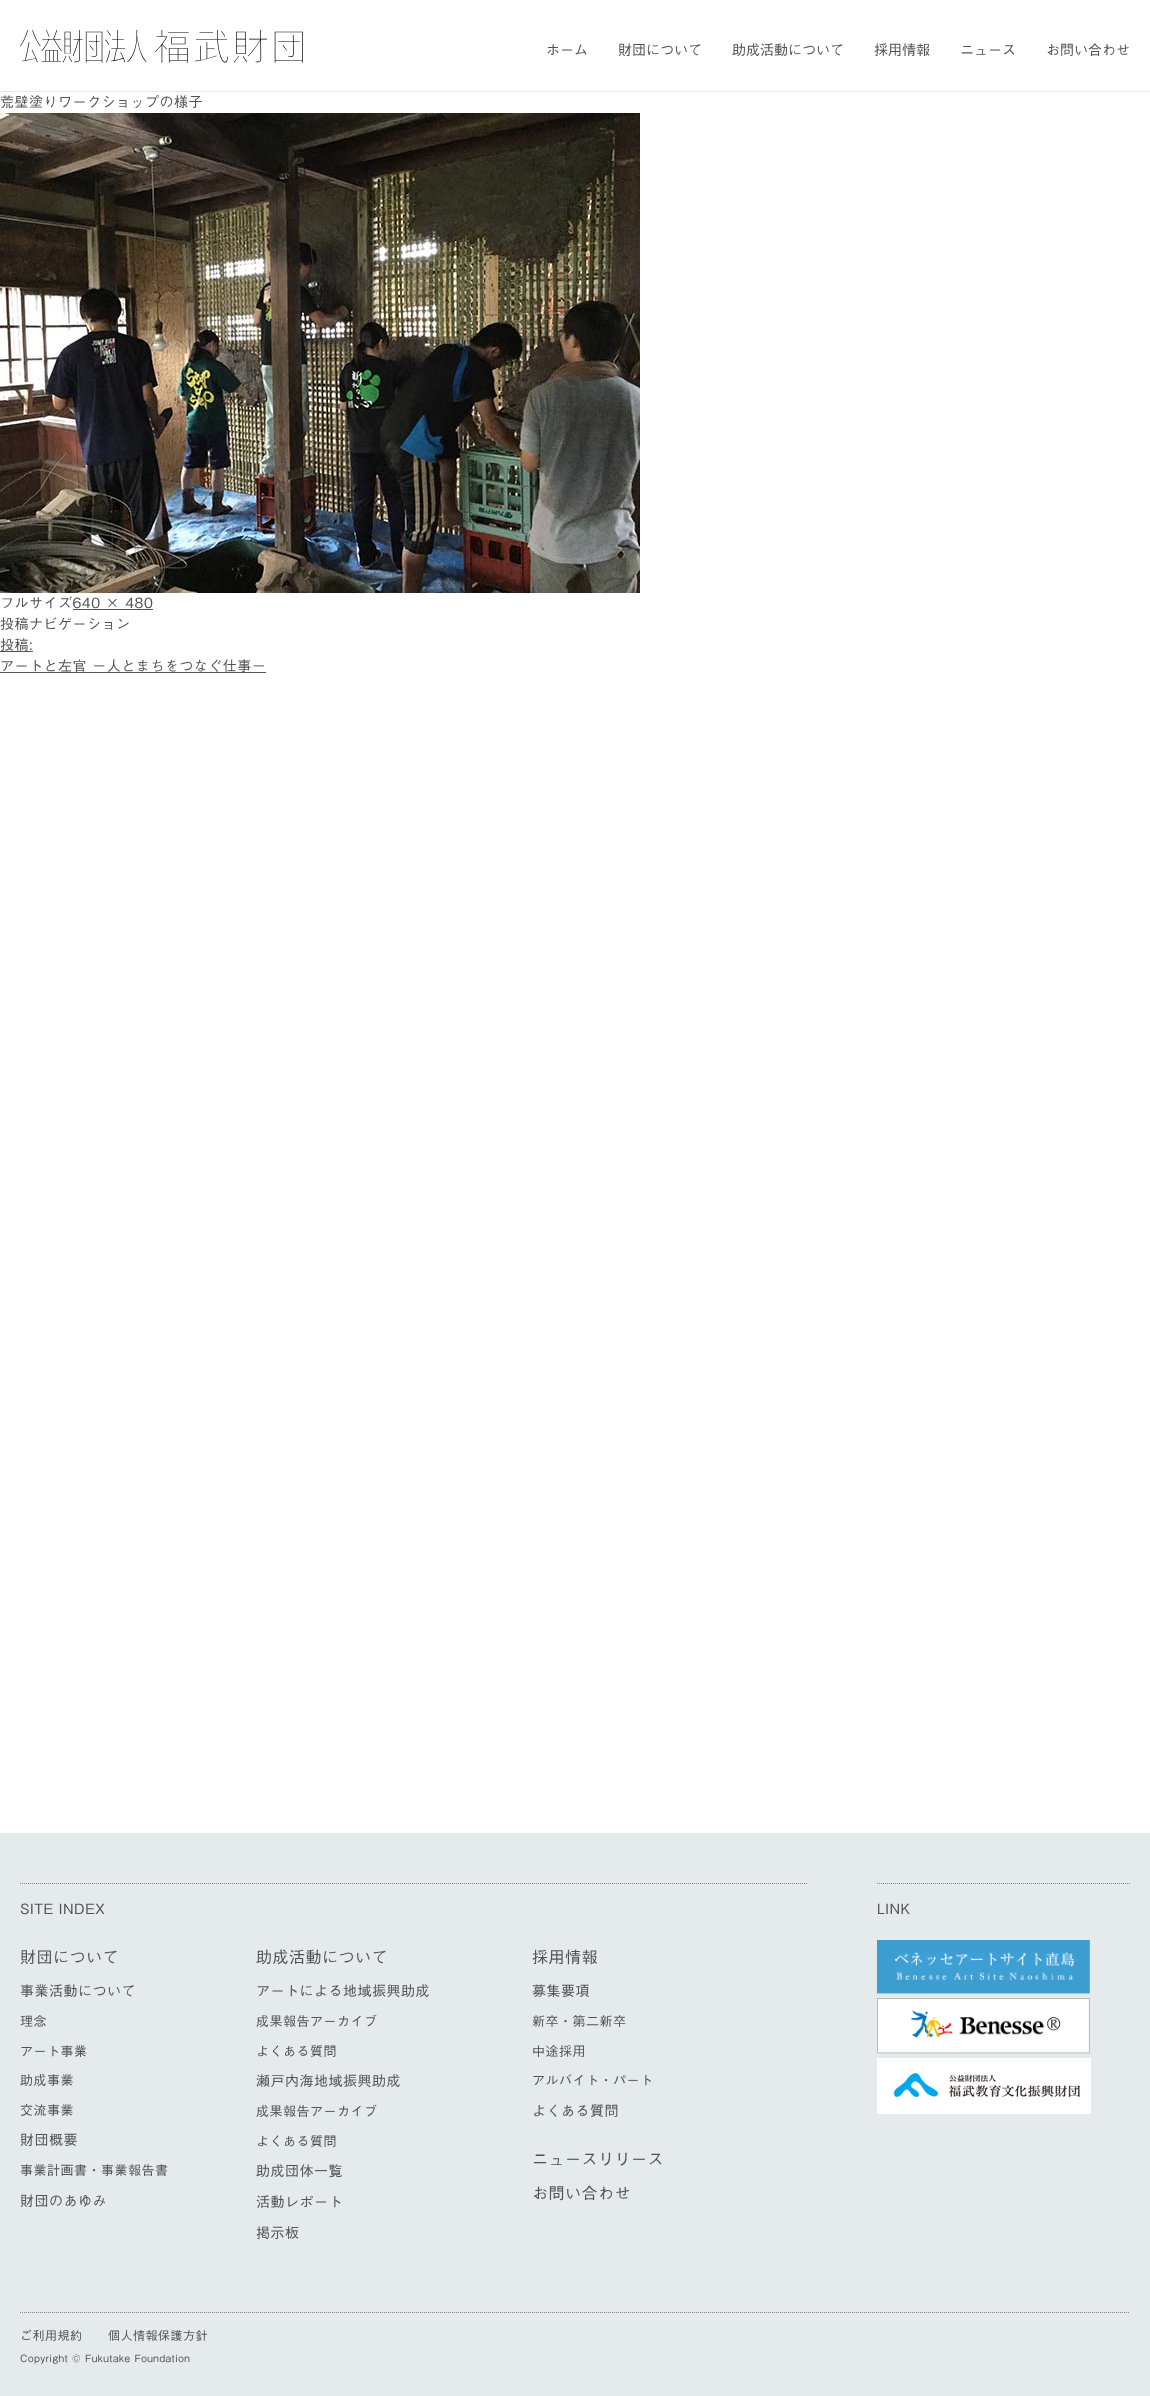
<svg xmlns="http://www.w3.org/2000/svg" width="1150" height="2396">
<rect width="100%" height="100%" fill="#fff"/>
<rect y="91" width="1150" height="1" fill="#e5eaed"/>
<image x="20" y="30" width="283" height="33" href="media/1.png"/>
<text x="546" y="55" style="font-family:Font;font-size:14px;fill:#535353">ホーム</text>
<text x="618" y="55" style="font-family:Font;font-size:14px;fill:#535353">財団について</text>
<text x="732" y="55" style="font-family:Font;font-size:14px;fill:#535353">助成活動について</text>
<text x="874" y="55" style="font-family:Font;font-size:14px;fill:#535353">採用情報</text>
<text x="960" y="55" style="font-family:Font;font-size:14px;fill:#535353">ニュース</text>
<text x="1046" y="55" style="font-family:Font;font-size:14px;fill:#535353">お問い合わせ</text>
<text x="0" y="107" style="font-family:Font;font-size:14px;letter-spacing:0.5px;fill:#535353">荒壁塗りワークショップの様子</text>
<image x="0" y="113" width="640" height="480" href="media/2.png"/>
<text x="0" y="608" style="font-family:Font;font-size:14px;letter-spacing:0.5px;fill:#535353">フルサイズ640 × 480</text>
<rect x="73" y="609" width="80" height="1" fill="#535353"/>
<text x="0" y="629" style="font-family:Font;font-size:14px;letter-spacing:0.5px;fill:#535353">投稿ナビゲーション</text>
<text x="0" y="650" style="font-family:Font;font-size:14px;letter-spacing:0.5px;fill:#535353">投稿:</text>
<rect y="651" width="33" height="1" fill="#535353"/>
<text x="0" y="671" style="font-family:Font;font-size:14px;letter-spacing:0.5px;fill:#535353">アートと左官 －人とまちをつなぐ仕事－</text>
<rect y="672" width="266" height="1" fill="#535353"/>
<rect y="1833" width="1150" height="563" fill="#e5eaed"/>
<path d="M20 1883.5h787" fill="none" stroke="#848484" stroke-dasharray="1 1"/>
<text x="20" y="1914" style="font-family:Font;font-size:14px;letter-spacing:0.5px;fill:#535353">SITE INDEX</text>
<text x="20" y="1963" style="font-family:Font;font-size:16px;letter-spacing:0.5px;fill:#535353">財団について</text>
<text x="20" y="1996" style="font-family:Font;font-size:14px;letter-spacing:0.5px;fill:#535353">事業活動について</text>
<text x="20" y="2026" style="font-family:Font;font-size:13px;letter-spacing:0.5px;fill:#535353">理念</text>
<text x="20" y="2056" style="font-family:Font;font-size:13px;letter-spacing:0.5px;fill:#535353">アート事業</text>
<text x="20" y="2085" style="font-family:Font;font-size:13px;letter-spacing:0.5px;fill:#535353">助成事業</text>
<text x="20" y="2115" style="font-family:Font;font-size:13px;letter-spacing:0.5px;fill:#535353">交流事業</text>
<text x="20" y="2145" style="font-family:Font;font-size:14px;letter-spacing:0.5px;fill:#535353">財団概要</text>
<text x="20" y="2175" style="font-family:Font;font-size:13px;letter-spacing:0.5px;fill:#535353">事業計画書・事業報告書</text>
<text x="20" y="2206" style="font-family:Font;font-size:14px;letter-spacing:0.5px;fill:#535353">財団のあゆみ</text>
<text x="256" y="1963" style="font-family:Font;font-size:16px;letter-spacing:0.5px;fill:#535353">助成活動について</text>
<text x="256" y="1996" style="font-family:Font;font-size:14px;letter-spacing:0.5px;fill:#535353">アートによる地域振興助成</text>
<text x="256" y="2026" style="font-family:Font;font-size:13px;letter-spacing:0.5px;fill:#535353">成果報告アーカイブ</text>
<text x="256" y="2056" style="font-family:Font;font-size:13px;letter-spacing:0.5px;fill:#535353">よくある質問</text>
<text x="256" y="2086" style="font-family:Font;font-size:14px;letter-spacing:0.5px;fill:#535353">瀬戸内海地域振興助成</text>
<text x="256" y="2116" style="font-family:Font;font-size:13px;letter-spacing:0.5px;fill:#535353">成果報告アーカイブ</text>
<text x="256" y="2146" style="font-family:Font;font-size:13px;letter-spacing:0.5px;fill:#535353">よくある質問</text>
<text x="256" y="2176" style="font-family:Font;font-size:14px;letter-spacing:0.5px;fill:#535353">助成団体一覧</text>
<text x="256" y="2207" style="font-family:Font;font-size:14px;letter-spacing:0.5px;fill:#535353">活動レポート</text>
<text x="256" y="2238" style="font-family:Font;font-size:14px;letter-spacing:0.5px;fill:#535353">掲示板</text>
<text x="532" y="1963" style="font-family:Font;font-size:16px;letter-spacing:0.5px;fill:#535353">採用情報</text>
<text x="532" y="1996" style="font-family:Font;font-size:14px;letter-spacing:0.5px;fill:#535353">募集要項</text>
<text x="532" y="2026" style="font-family:Font;font-size:13px;letter-spacing:0.5px;fill:#535353">新卒・第二新卒</text>
<text x="532" y="2056" style="font-family:Font;font-size:13px;letter-spacing:0.5px;fill:#535353">中途採用</text>
<text x="532" y="2085" style="font-family:Font;font-size:13px;letter-spacing:0.5px;fill:#535353">アルバイト・パート</text>
<text x="532" y="2116" style="font-family:Font;font-size:14px;letter-spacing:0.5px;fill:#535353">よくある質問</text>
<text x="532" y="2165" style="font-family:Font;font-size:16px;letter-spacing:0.5px;fill:#535353">ニュースリリース</text>
<text x="532" y="2199" style="font-family:Font;font-size:16px;letter-spacing:0.5px;fill:#535353">お問い合わせ</text>
<path d="M877 1883.5h253" fill="none" stroke="#848484" stroke-dasharray="1 1"/>
<text x="877" y="1914" style="font-family:Font;font-size:14px;letter-spacing:0.5px;fill:#535353">LINK</text>
<image x="877" y="1940" width="213" height="54" href="media/3.png"/>
<image x="877" y="1998" width="213" height="56" href="media/4.png"/>
<image x="877" y="2058" width="214" height="56" href="media/5.png"/>
<path d="M20 2312.5h1110" fill="none" stroke="#848484" stroke-dasharray="1 1"/>
<text x="20" y="2340" style="font-family:Font;font-size:12px;letter-spacing:0.5px;fill:#535353">ご利用規約</text>
<text x="108" y="2340" style="font-family:Font;font-size:12px;letter-spacing:0.5px;fill:#535353">個人情報保護方針</text>
<text x="20" y="2362" style="font-family:Font;font-size:10px;letter-spacing:0.5px;fill:#535353">Copyright © Fukutake Foundation</text>
</svg>
